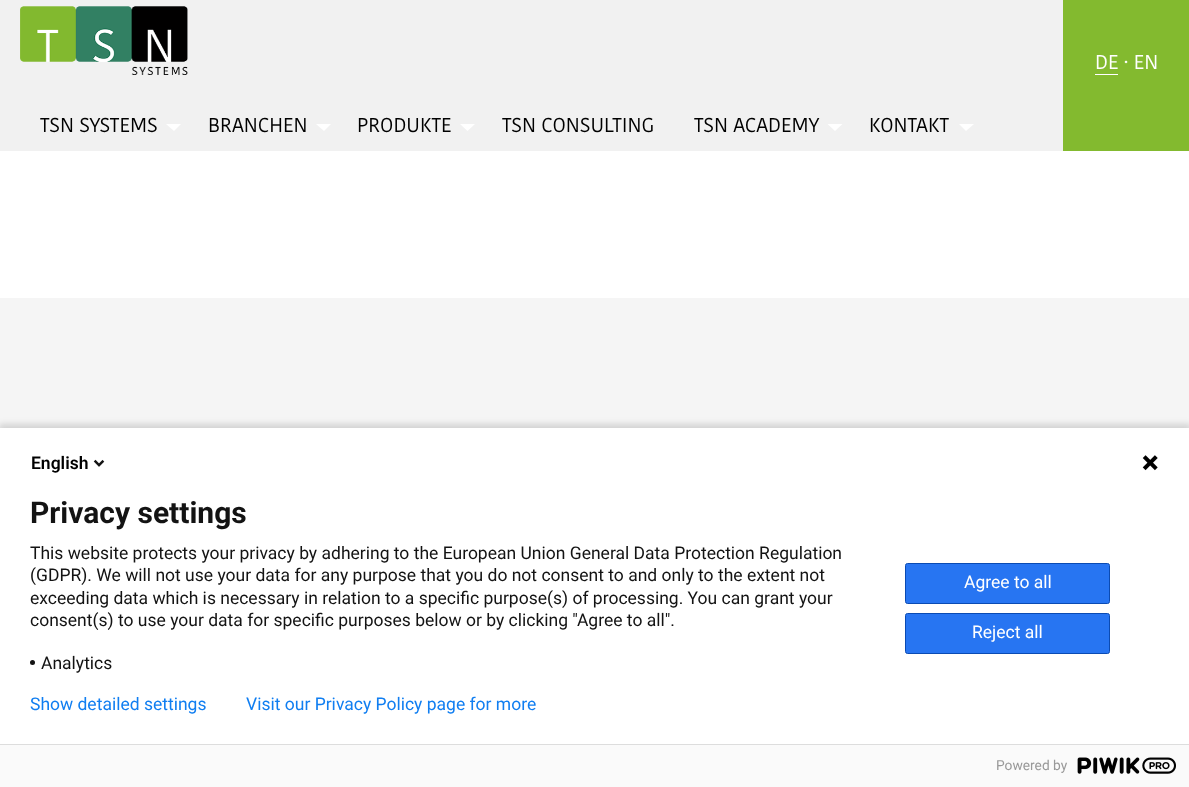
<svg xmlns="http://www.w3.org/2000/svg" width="1189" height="787">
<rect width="100%" height="100%" fill="#fff"/>
<rect width="1063" height="151" fill="#f1f1f1"/>
<rect x="1063" width="126" height="151" fill="#83ba2f"/>
<text x="1095" y="69" style="font-family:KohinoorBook;font-size:20px;fill:#fff">DE · EN</text>
<rect x="1095" y="74" width="23" height="1" fill="#fff"/>
<image x="20" y="6" width="168" height="69" href="media/1.png"/>
<text x="40" y="132" style="font-family:KohinoorBook;font-size:20px;fill:#000">TSN SYSTEMS</text>
<path d="M166 124h15l-7 7z" fill="#fff"/>
<text x="208" y="132" style="font-family:KohinoorBook;font-size:20px;fill:#000">BRANCHEN</text>
<path d="M316 124h15l-7 7z" fill="#fff"/>
<text x="357" y="132" style="font-family:KohinoorBook;font-size:20px;fill:#000">PRODUKTE</text>
<path d="M460 124h15l-7.5 7z" fill="#fff"/>
<text x="502" y="132" style="font-family:KohinoorBook;font-size:20px;fill:#000">TSN CONSULTING</text>
<text x="694" y="132" style="font-family:KohinoorBook;font-size:20px;fill:#000">TSN ACADEMY</text>
<path d="M827.5 124h15l-7.5 7z" fill="#fff"/>
<text x="869" y="132" style="font-family:KohinoorBook;font-size:20px;fill:#000">KONTAKT</text>
<path d="M959 124h15l-8 7z" fill="#fff"/>
<rect y="298" width="1189" height="130" fill="#f5f5f5"/>
<rect x="-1" y="424" width="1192" height="362" fill="#00000024" filter="blur(3px)"/>
<rect y="428" width="1189" height="316" fill="#fff"/>
<text x="31" y="469" style="font-family:Roboto;font-size:17.5px;font-weight:600;fill:#000">English</text>
<image x="93" y="459" width="12" height="8" href="media/2.png"/>
<image x="1142" y="455" width="16" height="16" href="media/3.png"/>
<text x="30" y="523" style="font-family:Roboto;font-size:30px;font-weight:bold;fill:#131313">Privacy settings</text>
<text x="30" y="559" style="font-family:Roboto;font-size:17.5px;fill:#131313">This website protects your privacy by adhering to the European Union General Data Protection Regulation</text>
<text x="30" y="581" style="font-family:Roboto;font-size:17.5px;fill:#131313">(GDPR). We will not use your data for any purpose that you do not consent to and only to the extent not</text>
<text x="30" y="604" style="font-family:Roboto;font-size:17.5px;fill:#131313">exceeding data which is necessary in relation to a specific purpose(s) of processing. You can grant your</text>
<text x="30" y="626" style="font-family:Roboto;font-size:17.5px;fill:#131313">consent(s) to use your data for specific purposes below or by clicking "Agree to all".</text>
<circle cx="32.5" cy="662.5" r="2.5" fill="#131313"/>
<text x="41" y="669" style="font-family:Roboto;font-size:17.5px;fill:#131313">Analytics</text>
<rect x="905.5" y="563.5" width="204" height="40" rx="2" fill="#2775f2" stroke="#0b4bb3"/>
<text x="964" y="588" style="font-family:Roboto;font-size:17.5px;fill:#fff">Agree to all</text>
<rect x="905.5" y="613.5" width="204" height="40" rx="2" fill="#2775f2" stroke="#0b4bb3"/>
<text x="972" y="638" style="font-family:Roboto;font-size:17.5px;fill:#fff">Reject all</text>
<text x="30" y="710" style="font-family:Roboto;font-size:17.5px;fill:#107ef1">Show detailed settings</text>
<text x="246" y="710" style="font-family:Roboto;font-size:17.5px;fill:#107ef1">Visit our Privacy Policy page for more</text>
<rect y="745" width="1189" height="42" fill="#fafafa"/>
<rect y="744" width="1189" height="1" fill="#ddd"/>
<text x="996" y="770" style="font-family:Roboto;font-size:13.75px;fill:#999">Powered by</text>
<image x="1077" y="757" width="99" height="17" href="media/4.png"/>
</svg>
